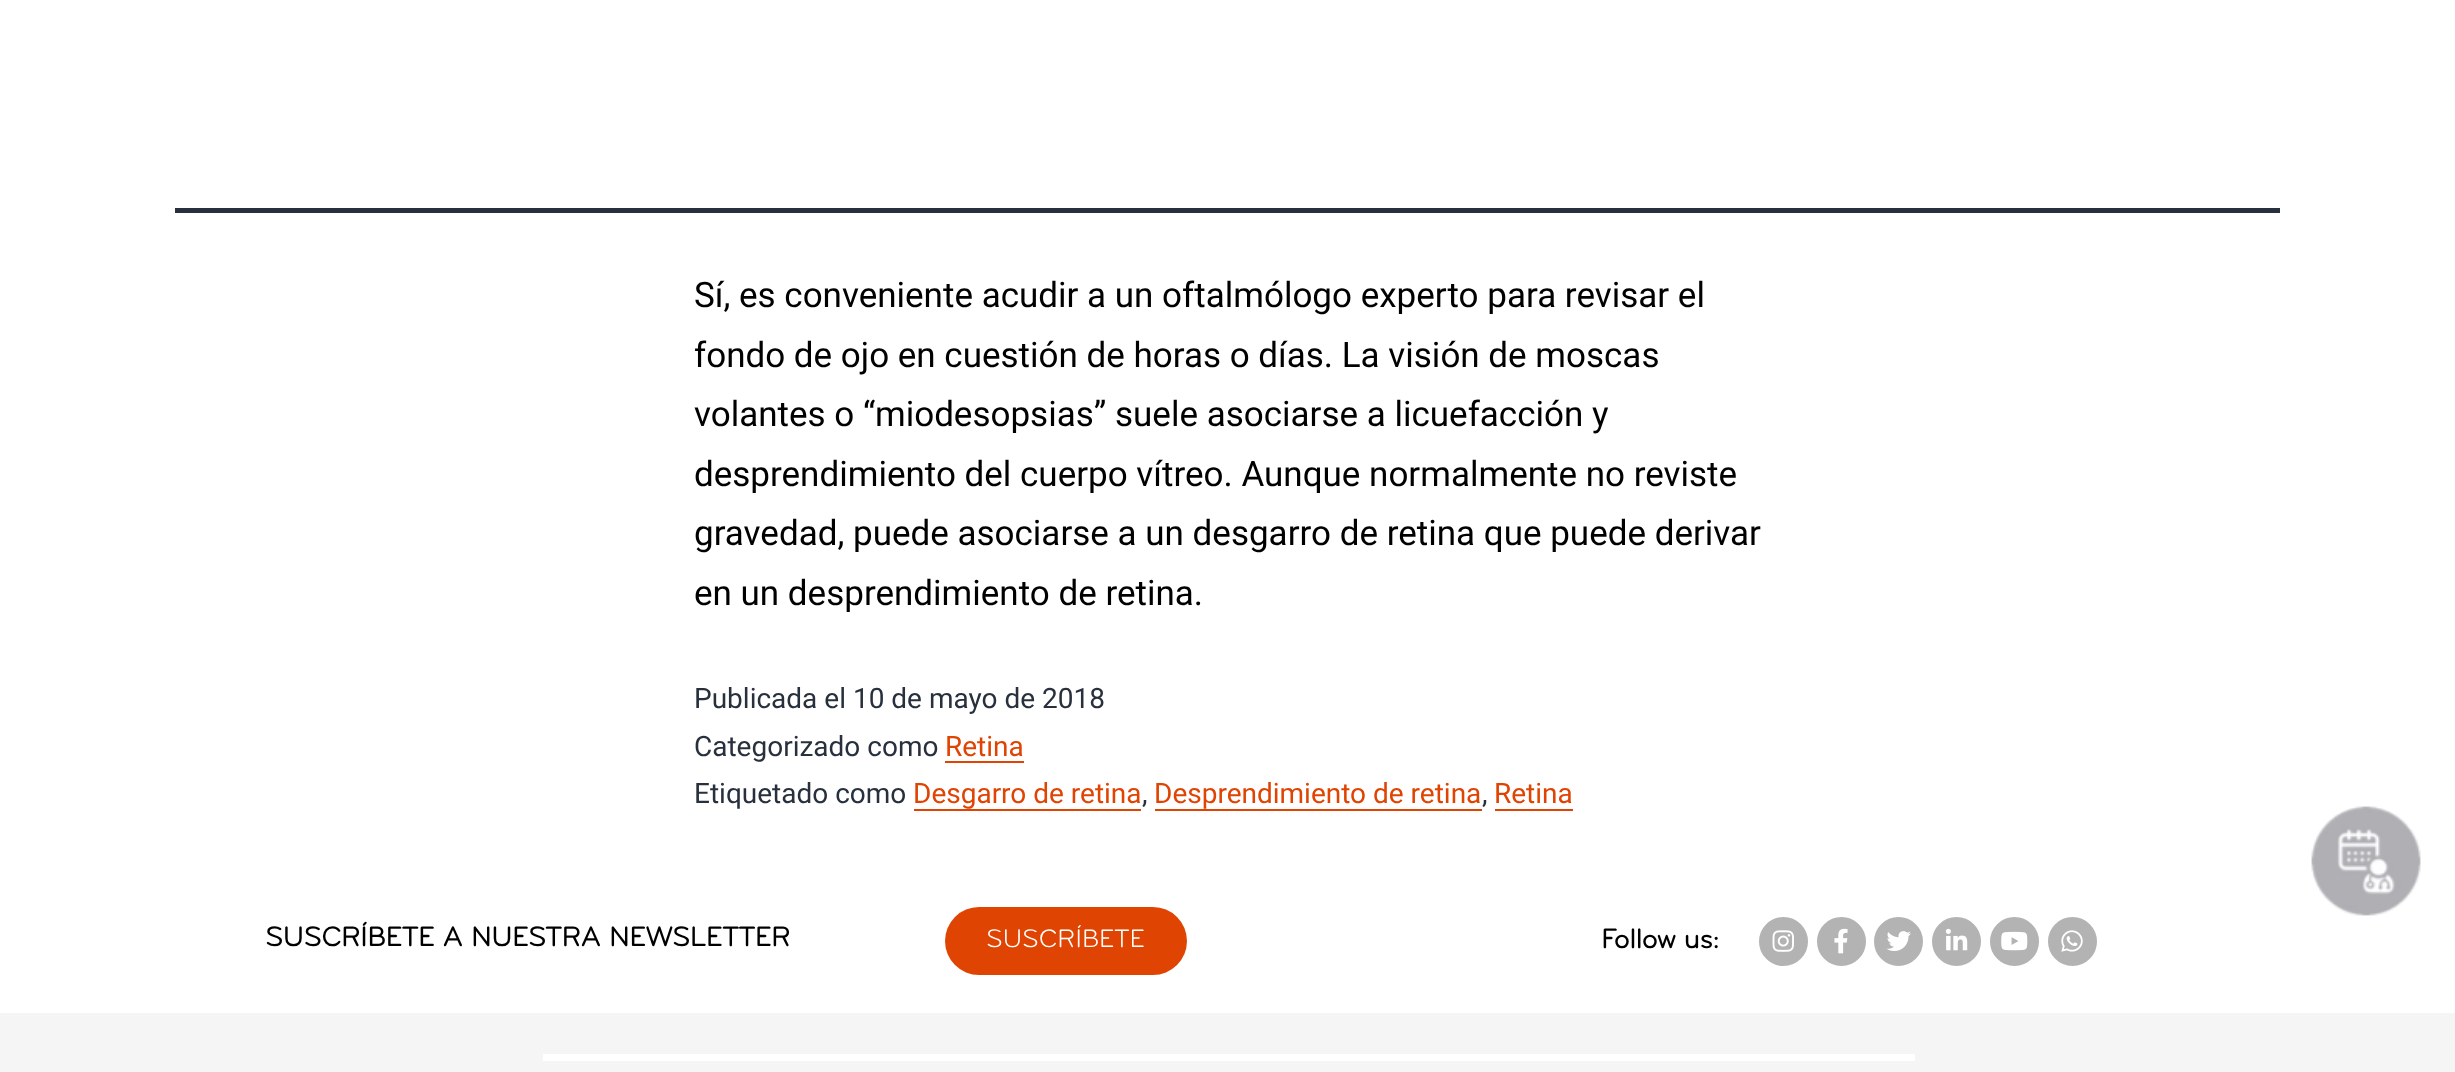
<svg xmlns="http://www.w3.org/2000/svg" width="2455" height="1072">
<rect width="100%" height="100%" fill="#fff"/>
<rect x="175" y="208" width="2105" height="5" fill="#28303d"/>
<text x="694" y="307" style="font-family:Roboto;font-size:35px;fill:#000">Sí, es conveniente acudir a un oftalmólogo experto para revisar el</text>
<text x="694" y="367" style="font-family:Roboto;font-size:35px;fill:#000">fondo de ojo en cuestión de horas o días. La visión de moscas</text>
<text x="694" y="426" style="font-family:Roboto;font-size:35px;fill:#000">volantes o “miodesopsias” suele asociarse a licuefacción y</text>
<text x="694" y="486" style="font-family:Roboto;font-size:35px;fill:#000">desprendimiento del cuerpo vítreo. Aunque normalmente no reviste</text>
<text x="694" y="545" style="font-family:Roboto;font-size:35px;fill:#000">gravedad, puede asociarse a un desgarro de retina que puede derivar</text>
<text x="694" y="605" style="font-family:Roboto;font-size:35px;fill:#000">en un desprendimiento de retina.</text>
<text x="694" y="708" style="font-family:Roboto;font-size:28px;fill:#28303d">Publicada el 10 de mayo de 2018</text>
<text x="694" y="756" style="font-family:Roboto;font-size:28px;fill:#28303d">Categorizado como</text>
<text x="945" y="756" style="font-family:Roboto;font-size:28px;fill:#e04403">Retina</text>
<rect x="945" y="761" width="79" height="2" fill="#e04403"/>
<text x="694" y="803" style="font-family:Roboto;font-size:28px;fill:#28303d">Etiquetado como</text>
<text x="913" y="803" style="font-family:Roboto;font-size:28px;fill:#e04403">Desgarro de retina</text>
<rect x="914" y="809" width="227" height="2" fill="#e04403"/>
<text x="1142" y="803" style="font-family:Roboto;font-size:28px;fill:#28303d">,</text>
<text x="1154" y="803" style="font-family:Roboto;font-size:28px;fill:#e04403">Desprendimiento de retina</text>
<rect x="1155" y="809" width="327" height="2" fill="#e04403"/>
<text x="1482" y="803" style="font-family:Roboto;font-size:28px;fill:#28303d">,</text>
<text x="1494" y="803" style="font-family:Roboto;font-size:28px;fill:#e04403">Retina</text>
<rect x="1495" y="809" width="78" height="2" fill="#e04403"/>
<image x="2311" y="806" width="110" height="110" href="media/1.png"/>
<text x="265" y="946" style="font-family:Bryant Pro;font-size:28px;font-weight:bold;fill:#000">SUSCRÍBETE A NUESTRA NEWSLETTER</text>
<rect x="945" y="907" width="242" height="68" rx="34" fill="#e04403"/>
<text x="986" y="947" style="font-family:Bryant Pro;font-size:26.25px;fill:#fff">SUSCRÍBETE</text>
<text x="1601" y="948" style="font-family:Bryant Pro;font-size:28px;font-weight:bold;fill:#000">Follow us:</text>
<circle cx="1783.5" cy="941.5" r="22" fill="#b3b3b3" stroke="#b3b3b3" stroke-width="5"/>
<image x="1772" y="930" width="22" height="22" href="media/2.png"/>
<circle cx="1841.5" cy="941.5" r="22" fill="#b3b3b3" stroke="#b3b3b3" stroke-width="5"/>
<image x="1834" y="928" width="14" height="26" href="media/3.png"/>
<circle cx="1898.5" cy="941.5" r="22" fill="#b3b3b3" stroke="#b3b3b3" stroke-width="5"/>
<image x="1886" y="931" width="25" height="20" href="media/4.png"/>
<circle cx="1956.5" cy="941.5" r="22" fill="#b3b3b3" stroke="#b3b3b3" stroke-width="5"/>
<image x="1945" y="928" width="23" height="23" href="media/5.png"/>
<circle cx="2014.5" cy="941.5" r="22" fill="#b3b3b3" stroke="#b3b3b3" stroke-width="5"/>
<image x="2001" y="931" width="27" height="20" href="media/6.png"/>
<circle cx="2072.5" cy="941.5" r="22" fill="#b3b3b3" stroke="#b3b3b3" stroke-width="5"/>
<image x="2061" y="930" width="22" height="22" href="media/7.png"/>
<rect y="1013" width="2455" height="59" fill="#f5f5f5"/>
<rect x="543" y="1054" width="1372" height="7" fill="#fff"/>
</svg>
